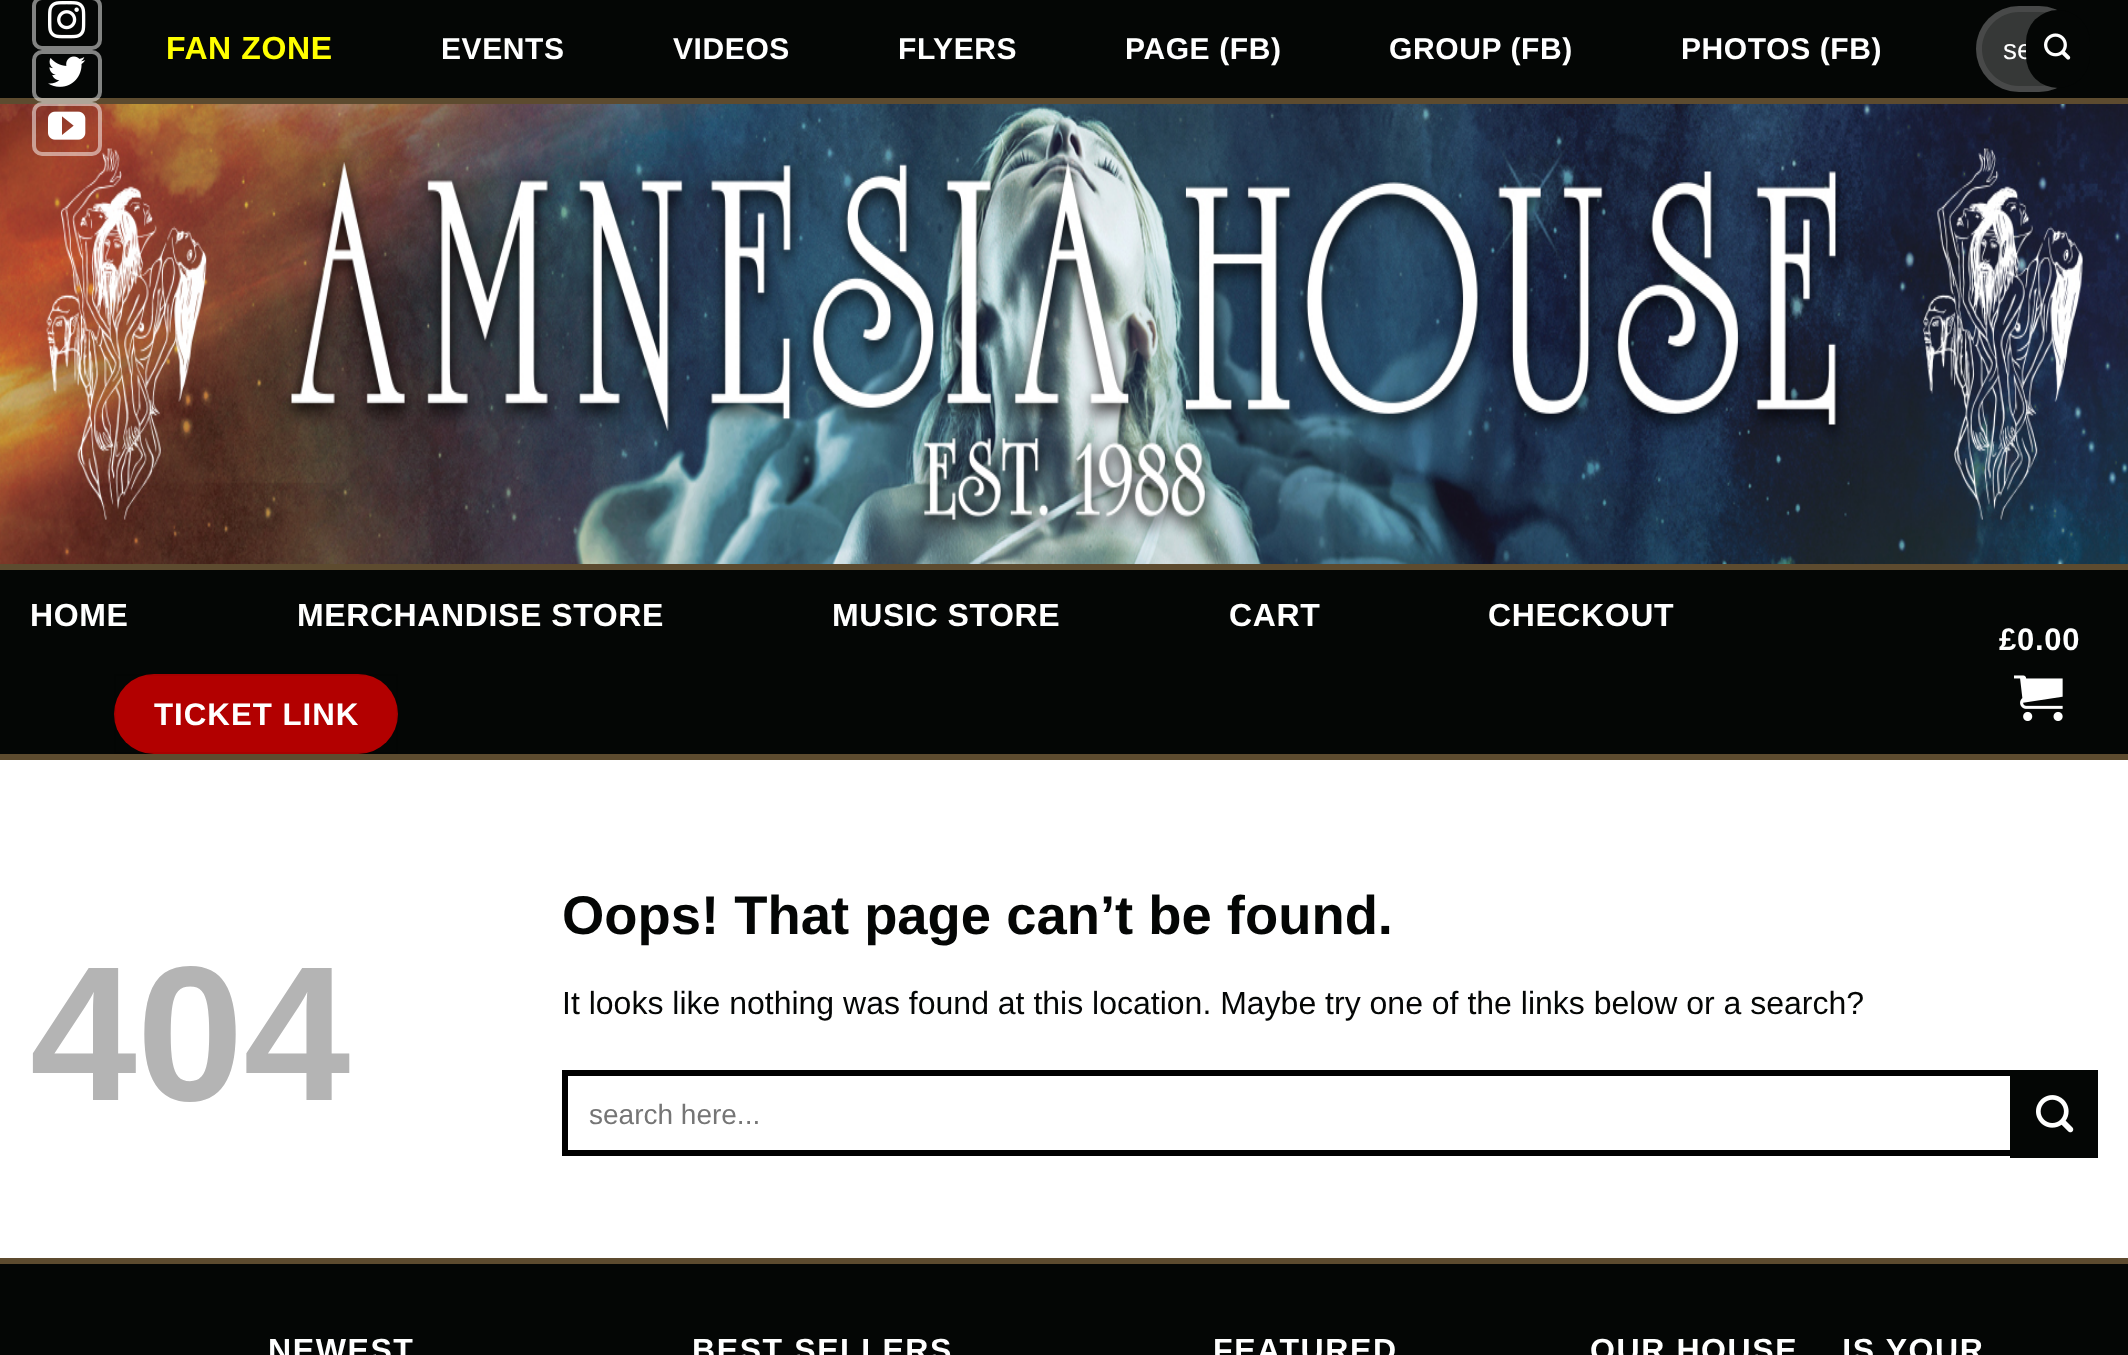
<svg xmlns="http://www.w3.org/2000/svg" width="2128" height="1355">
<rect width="100%" height="100%" fill="#fff"/>
<rect width="2128" height="98" fill="#040605"/>
<rect y="98" width="2128" height="6" fill="#5d4b2f"/>
<rect x="34" y="-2" width="66" height="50" rx="8" fill="none" stroke="#828382" stroke-width="4"/>
<image x="48" y="1" width="38" height="38" href="media/1.png"/>
<rect x="34" y="52" width="66" height="48" rx="8" fill="none" stroke="#ffffff80" stroke-width="4"/>
<image x="48" y="56" width="38" height="31" href="media/2.png"/>
<image x="0" y="104" width="2128" height="460" href="media/5.png"/>
<rect x="34" y="104" width="66" height="50" rx="8" fill="none" stroke="#ffffff80" stroke-width="4"/>
<image x="48" y="111" width="38" height="29" href="media/3.png"/>
<text x="166" y="59" style="font-family:Liberation Sans;font-size:32px;font-weight:bold;letter-spacing:0.6px;fill:#ff0">FAN ZONE</text>
<text x="441" y="59" style="font-family:Liberation Sans;font-size:30px;font-weight:bold;letter-spacing:0.6px;fill:#fff">EVENTS</text>
<text x="673" y="59" style="font-family:Liberation Sans;font-size:30px;font-weight:bold;letter-spacing:0.6px;fill:#fff">VIDEOS</text>
<text x="898" y="59" style="font-family:Liberation Sans;font-size:30px;font-weight:bold;letter-spacing:0.6px;fill:#fff">FLYERS</text>
<text x="1125" y="59" style="font-family:Liberation Sans;font-size:30px;font-weight:bold;letter-spacing:0.6px;fill:#fff">PAGE (FB)</text>
<text x="1389" y="59" style="font-family:Liberation Sans;font-size:30px;font-weight:bold;letter-spacing:0.6px;fill:#fff">GROUP (FB)</text>
<text x="1681" y="59" style="font-family:Liberation Sans;font-size:30px;font-weight:bold;letter-spacing:0.6px;fill:#fff">PHOTOS (FB)</text>
<rect x="1976" y="6" width="106" height="86" rx="43" fill="#363837"/>
<path d="M2019 6h20c24 0 43 19 43 43c0 24-19 43-43 43h-20c-24 0-43-19-43-43c0-24 19-43 43-43zm0 6h20c24 0 43 17 43 37c0 20-19 37-43 37h-20c-20 0-37-17-37-37c0-20 17-37 37-37z" fill="#ffffff17" fill-rule="evenodd"/>
<text x="2003" y="59" style="font-family:Liberation Sans;font-size:28px;fill:#fff">se</text>
<rect x="2026" y="10" width="64" height="78" rx="32" fill="#040605"/>
<image x="2044" y="33" width="27" height="27" href="media/4.png"/>
<rect y="570" width="2128" height="184" fill="#040605"/>
<rect y="564" width="2128" height="6" fill="#5d4b2f"/>
<rect y="754" width="2128" height="6" fill="#5d4b2f"/>
<text x="30" y="626" style="font-family:Liberation Sans;font-size:32px;font-weight:bold;letter-spacing:0.6px;fill:#fff">HOME</text>
<text x="297" y="626" style="font-family:Liberation Sans;font-size:32px;font-weight:bold;letter-spacing:0.6px;fill:#fff">MERCHANDISE STORE</text>
<text x="832" y="626" style="font-family:Liberation Sans;font-size:32px;font-weight:bold;letter-spacing:0.6px;fill:#fff">MUSIC STORE</text>
<text x="1229" y="626" style="font-family:Liberation Sans;font-size:32px;font-weight:bold;letter-spacing:0.6px;fill:#fff">CART</text>
<text x="1488" y="626" style="font-family:Liberation Sans;font-size:32px;font-weight:bold;letter-spacing:0.6px;fill:#fff">CHECKOUT</text>
<rect x="114" y="674" width="284" height="80" rx="40" fill="#b20000"/>
<rect x="115" y="675" width="282" height="78" fill="none" stroke="#0000000d" stroke-width="2"/>
<text x="154" y="725" style="font-family:Liberation Sans;font-size:31.25px;font-weight:bold;letter-spacing:1px;fill:#fff">TICKET LINK</text>
<text x="1999" y="650" style="font-family:Liberation Sans;font-size:31px;font-weight:bold;letter-spacing:0.75px;fill:#fff">£0.00</text>
<image x="2014" y="675" width="49" height="46" href="media/6.png"/>
<text x="30" y="1100" style="font-family:Liberation Sans;font-size:192px;font-weight:bold;fill:#b4b4b4">404</text>
<text x="562" y="934" style="font-family:Liberation Sans;font-size:54.4px;font-weight:bold;fill:#040605">Oops! That page can’t be found.</text>
<text x="562" y="1014" style="font-family:Liberation Sans;font-size:32px;fill:#040605">It looks like nothing was found at this location. Maybe try one of the links below or a search?</text>
<rect x="562" y="1070" width="1448" height="6" fill="#000"/>
<rect x="562" y="1150" width="1448" height="6" fill="#000"/>
<rect x="562" y="1070" width="6" height="86" fill="#000"/>
<text x="589" y="1124" style="font-family:Liberation Sans;font-size:28px;fill:#757575">search here...</text>
<rect x="2010" y="1070" width="88" height="88" fill="#040605"/>
<image x="2036" y="1095" width="38" height="38" href="media/7.png"/>
<rect y="1264" width="2128" height="91" fill="#040605"/>
<rect y="1258" width="2128" height="6" fill="#5d4b2f"/>
<text x="268" y="1361" style="font-family:Liberation Sans;font-size:32px;font-weight:bold;letter-spacing:1.6px;fill:#fff">NEWEST</text>
<text x="692" y="1361" style="font-family:Liberation Sans;font-size:32px;font-weight:bold;letter-spacing:1.6px;fill:#fff">BEST SELLERS</text>
<text x="1213" y="1361" style="font-family:Liberation Sans;font-size:32px;font-weight:bold;letter-spacing:1.6px;fill:#fff">FEATURED</text>
<text x="1590" y="1361" style="font-family:Liberation Sans;font-size:32px;font-weight:bold;letter-spacing:1.6px;fill:#fff">OUR HOUSE… IS YOUR</text>
</svg>
